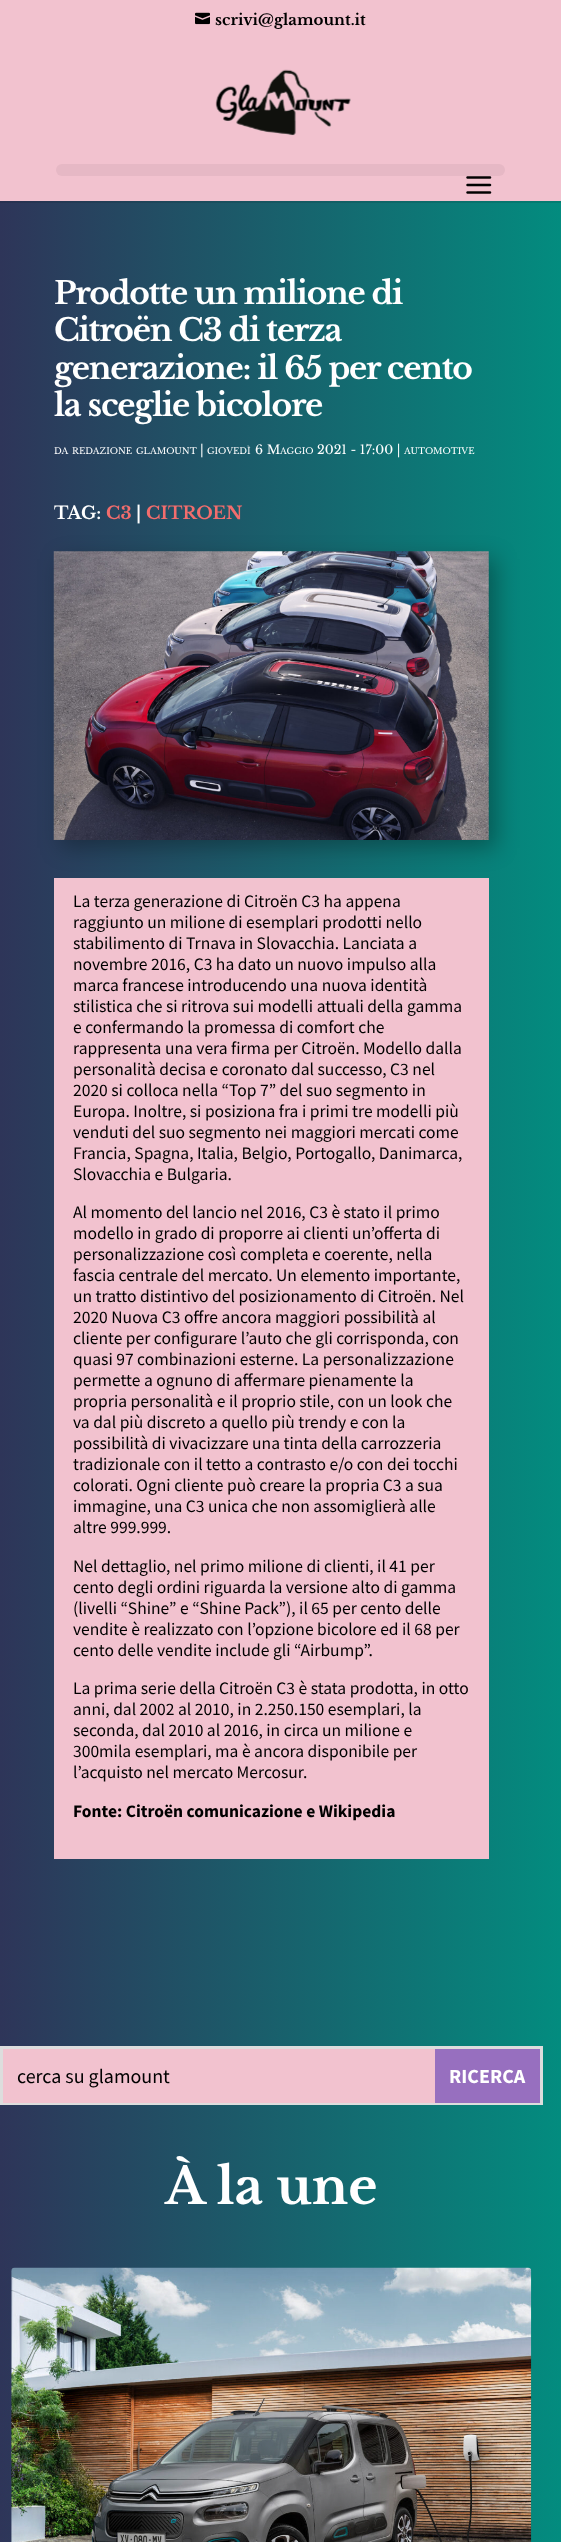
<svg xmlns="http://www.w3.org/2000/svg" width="561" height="2542">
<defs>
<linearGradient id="g1" gradientUnits="userSpaceOnUse" x1="0" y1="1897" x2="561" y2="1897"><stop offset="0" stop-color="#2e3559"/><stop offset="1" stop-color="#038c7f"/></linearGradient>
<linearGradient id="g2" gradientUnits="userSpaceOnUse" x1="0" y1="1897" x2="561" y2="1897"><stop offset="0" stop-color="#293050"/><stop offset="1" stop-color="#037e72"/></linearGradient>
</defs>
<rect width="100%" height="100%" fill="#f2c2cf"/>
<image x="195" y="12" width="15" height="13" href="media/1.png"/>
<text x="215" y="25" style="font-family:Libre Baskerville;font-size:15px;font-weight:bold;fill:#000">scrivi@glamount.it</text>
<image x="215" y="69" width="136" height="67" href="media/2.png"/>
<rect x="56" y="164" width="449" height="12" rx="6" fill="#e6b8c5"/>
<image x="466" y="176" width="26" height="18" href="media/3.png"/>
<rect y="203" width="561" height="2339" fill="url(#g1)"/>
<rect y="201" width="561" height="2" fill="url(#g2)"/>
<text x="54" y="304" style="font-family:Libre Baskerville;font-size:31.25px;font-weight:bold;letter-spacing:-1.25px;fill:#fff">Prodotte un milione di</text>
<text x="54" y="341" style="font-family:Libre Baskerville;font-size:31.25px;font-weight:bold;letter-spacing:-1.25px;fill:#fff">Citroën C3 di terza</text>
<text x="54" y="379" style="font-family:Libre Baskerville;font-size:31.25px;font-weight:bold;letter-spacing:-1.25px;fill:#fff">generazione: il 65 per cento</text>
<text x="54" y="416" style="font-family:Libre Baskerville;font-size:31.25px;font-weight:bold;letter-spacing:-1.25px;fill:#fff">la sceglie bicolore</text>
<text x="54" y="454" style="font-family:Libre Baskerville;font-size:8.75px;fill:#fff">DA</text>
<text x="72" y="454" style="font-family:Libre Baskerville;font-size:8.75px;fill:#fff">REDAZIONE</text>
<text x="136" y="454" style="font-family:Libre Baskerville;font-size:8.75px;fill:#fff">GLAMOUNT</text>
<text x="200" y="454" style="font-family:Libre Baskerville;font-size:12.5px;fill:#fff">|</text>
<text x="207" y="454" style="font-family:Libre Baskerville;font-size:8.75px;fill:#fff">GIOVEDÌ</text>
<text x="255" y="454" style="font-family:Libre Baskerville;font-size:12.5px;fill:#fff">6 M</text>
<text x="280" y="454" style="font-family:Libre Baskerville;font-size:8.75px;fill:#fff">AGGIO</text>
<text x="317" y="454" style="font-family:Libre Baskerville;font-size:12.5px;fill:#fff">2021 - 17:00 |</text>
<text x="404" y="454" style="font-family:Libre Baskerville;font-size:8.75px;fill:#fff">AUTOMOTIVE</text>
<text x="54" y="519" style="font-family:Libre Baskerville;font-size:17.5px;font-weight:bold;fill:#fff">TAG:</text>
<text x="106" y="519" style="font-family:Libre Baskerville;font-size:17.5px;font-weight:bold;fill:#f26d6d">C3</text>
<text x="136" y="519" style="font-family:Libre Baskerville;font-size:17.5px;font-weight:bold;fill:#fff">|</text>
<text x="146" y="519" style="font-family:Libre Baskerville;font-size:17.5px;font-weight:bold;fill:#f26d6d">CITROEN</text>
<rect x="61" y="559" width="435" height="289" fill="#0000004d" filter="blur(11px)"/>
<image x="53" y="551" width="436" height="289" href="media/4.png"/>
<rect x="54" y="878" width="435" height="981" fill="#f2c2cf"/>
<text x="73" y="907" style="font-family:Source Sans Pro;font-size:17.5px;fill:#000">La terza generazione di Citroën C3 ha appena</text>
<text x="73" y="928" style="font-family:Source Sans Pro;font-size:17.5px;fill:#000">raggiunto un milione di esemplari prodotti nello</text>
<text x="73" y="949" style="font-family:Source Sans Pro;font-size:17.5px;fill:#000">stabilimento di Trnava in Slovacchia. Lanciata a</text>
<text x="73" y="970" style="font-family:Source Sans Pro;font-size:17.5px;fill:#000">novembre 2016, C3 ha dato un nuovo impulso alla</text>
<text x="73" y="991" style="font-family:Source Sans Pro;font-size:17.5px;fill:#000">marca francese introducendo una nuova identità</text>
<text x="73" y="1012" style="font-family:Source Sans Pro;font-size:17.5px;fill:#000">stilistica che si ritrova sui modelli attuali della gamma</text>
<text x="73" y="1033" style="font-family:Source Sans Pro;font-size:17.5px;fill:#000">e confermando la promessa di comfort che</text>
<text x="73" y="1054" style="font-family:Source Sans Pro;font-size:17.5px;fill:#000">rappresenta una vera firma per Citroën. Modello dalla</text>
<text x="73" y="1075" style="font-family:Source Sans Pro;font-size:17.5px;fill:#000">personalità decisa e coronato dal successo, C3 nel</text>
<text x="73" y="1096" style="font-family:Source Sans Pro;font-size:17.5px;fill:#000">2020 si colloca nella “Top 7” del suo segmento in</text>
<text x="73" y="1117" style="font-family:Source Sans Pro;font-size:17.5px;fill:#000">Europa. Inoltre, si posiziona fra i primi tre modelli più</text>
<text x="73" y="1138" style="font-family:Source Sans Pro;font-size:17.5px;fill:#000">venduti del suo segmento nei maggiori mercati come</text>
<text x="73" y="1159" style="font-family:Source Sans Pro;font-size:17.5px;fill:#000">Francia, Spagna, Italia, Belgio, Portogallo, Danimarca,</text>
<text x="73" y="1180" style="font-family:Source Sans Pro;font-size:17.5px;fill:#000">Slovacchia e Bulgaria.</text>
<text x="73" y="1218" style="font-family:Source Sans Pro;font-size:17.5px;fill:#000">Al momento del lancio nel 2016, C3 è stato il primo</text>
<text x="73" y="1239" style="font-family:Source Sans Pro;font-size:17.5px;fill:#000">modello in grado di proporre ai clienti un’offerta di</text>
<text x="73" y="1260" style="font-family:Source Sans Pro;font-size:17.5px;fill:#000">personalizzazione così completa e coerente, nella</text>
<text x="73" y="1281" style="font-family:Source Sans Pro;font-size:17.5px;fill:#000">fascia centrale del mercato. Un elemento importante,</text>
<text x="73" y="1302" style="font-family:Source Sans Pro;font-size:17.5px;fill:#000">un tratto distintivo del posizionamento di Citroën. Nel</text>
<text x="73" y="1323" style="font-family:Source Sans Pro;font-size:17.5px;fill:#000">2020 Nuova C3 offre ancora maggiori possibilità al</text>
<text x="73" y="1344" style="font-family:Source Sans Pro;font-size:17.5px;fill:#000">cliente per configurare l’auto che gli corrisponda, con</text>
<text x="73" y="1365" style="font-family:Source Sans Pro;font-size:17.5px;fill:#000">quasi 97 combinazioni esterne. La personalizzazione</text>
<text x="73" y="1386" style="font-family:Source Sans Pro;font-size:17.5px;fill:#000">permette a ognuno di affermare pienamente la</text>
<text x="73" y="1407" style="font-family:Source Sans Pro;font-size:17.5px;fill:#000">propria personalità e il proprio stile, con un look che</text>
<text x="73" y="1428" style="font-family:Source Sans Pro;font-size:17.5px;fill:#000">va dal più discreto a quello più trendy e con la</text>
<text x="73" y="1449" style="font-family:Source Sans Pro;font-size:17.5px;fill:#000">possibilità di vivacizzare una tinta della carrozzeria</text>
<text x="73" y="1470" style="font-family:Source Sans Pro;font-size:17.5px;fill:#000">tradizionale con il tetto a contrasto e/o con dei tocchi</text>
<text x="73" y="1491" style="font-family:Source Sans Pro;font-size:17.5px;fill:#000">colorati. Ogni cliente può creare la propria C3 a sua</text>
<text x="73" y="1512" style="font-family:Source Sans Pro;font-size:17.5px;fill:#000">immagine, una C3 unica che non assomiglierà alle</text>
<text x="73" y="1533" style="font-family:Source Sans Pro;font-size:17.5px;fill:#000">altre 999.999.</text>
<text x="73" y="1572" style="font-family:Source Sans Pro;font-size:17.5px;fill:#000">Nel dettaglio, nel primo milione di clienti, il 41 per</text>
<text x="73" y="1593" style="font-family:Source Sans Pro;font-size:17.5px;fill:#000">cento degli ordini riguarda la versione alto di gamma</text>
<text x="73" y="1614" style="font-family:Source Sans Pro;font-size:17.5px;fill:#000">(livelli “Shine” e “Shine Pack”), il 65 per cento delle</text>
<text x="73" y="1635" style="font-family:Source Sans Pro;font-size:17.5px;fill:#000">vendite è realizzato con l’opzione bicolore ed il 68 per</text>
<text x="73" y="1656" style="font-family:Source Sans Pro;font-size:17.5px;fill:#000">cento delle vendite include gli “Airbump”.</text>
<text x="73" y="1694" style="font-family:Source Sans Pro;font-size:17.5px;fill:#000">La prima serie della Citroën C3 è stata prodotta, in otto</text>
<text x="73" y="1715" style="font-family:Source Sans Pro;font-size:17.5px;fill:#000">anni, dal 2002 al 2010, in 2.250.150 esemplari, la</text>
<text x="73" y="1736" style="font-family:Source Sans Pro;font-size:17.5px;fill:#000">seconda, dal 2010 al 2016, in circa un milione e</text>
<text x="73" y="1757" style="font-family:Source Sans Pro;font-size:17.5px;fill:#000">300mila esemplari, ma è ancora disponibile per</text>
<text x="73" y="1778" style="font-family:Source Sans Pro;font-size:17.5px;fill:#000">l’acquisto nel mercato Mercosur.</text>
<text x="73" y="1817" style="font-family:Source Sans Pro;font-size:17.5px;font-weight:bold;fill:#000">Fonte: Citroën comunicazione e Wikipedia</text>
<rect x="1.5" y="2047.5" width="540" height="56" fill="none" stroke="#ddd" stroke-width="3"/>
<rect x="3" y="2049" width="432" height="54" fill="#f2c2cf"/>
<text x="17" y="2083" style="font-family:Source Sans Pro;font-size:20px;fill:#000">cerca su glamount</text>
<rect x="435" y="2049" width="105" height="54" fill="#976fbf"/>
<text x="449" y="2083" style="font-family:Source Sans Pro;font-size:20px;font-weight:bold;fill:#fff">RICERCA</text>
<text x="165" y="2204" style="font-family:Libre Baskerville;font-size:50px;font-weight:bold;fill:#fff">À la une</text>
<image x="11" y="2267" width="521" height="275" href="media/5.png"/>
</svg>
